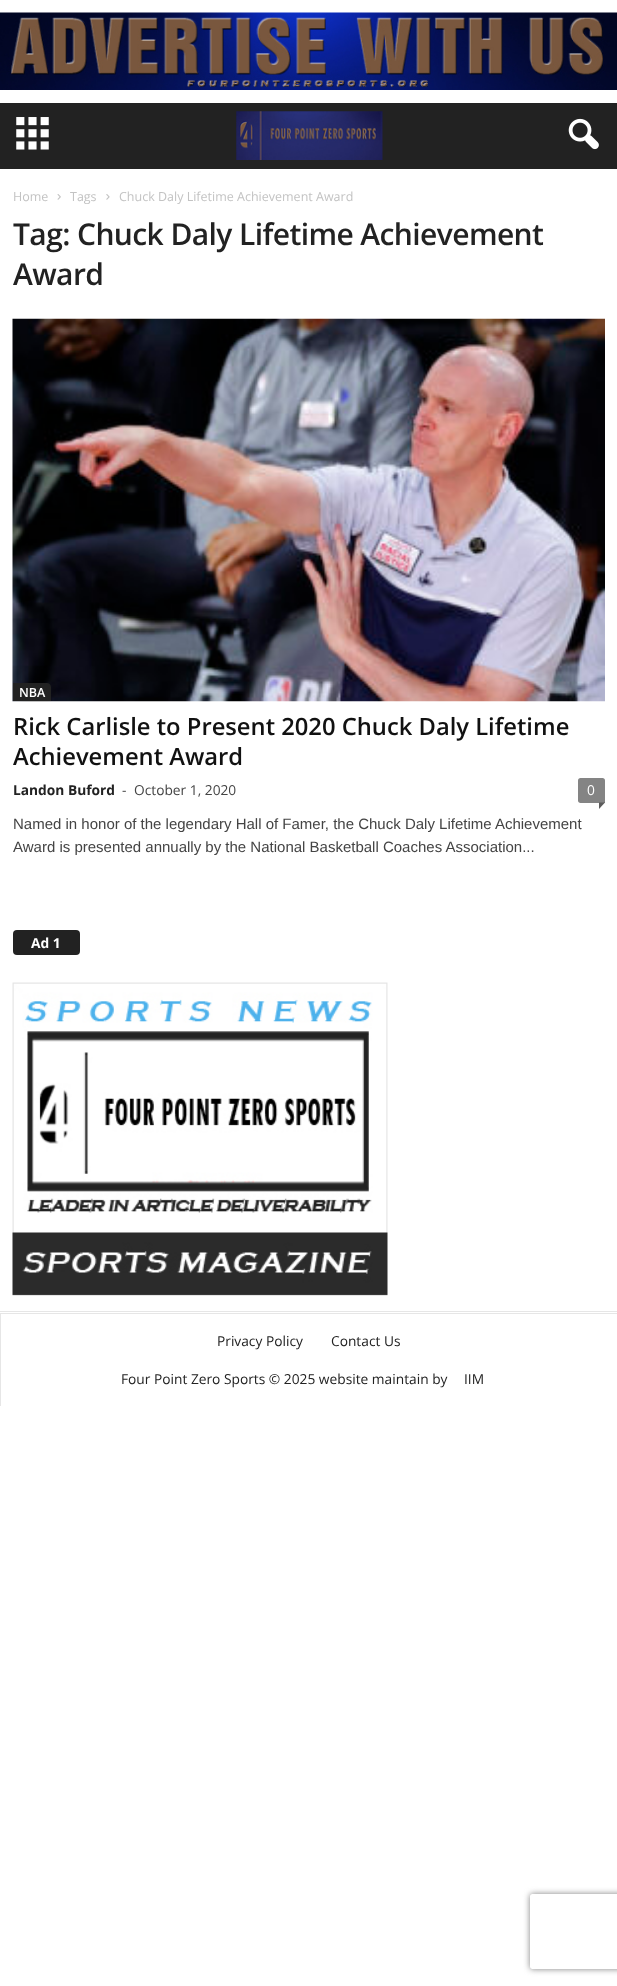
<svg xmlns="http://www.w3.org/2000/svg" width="617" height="1986">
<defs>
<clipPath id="clip1"><path d="M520 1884h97v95h-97zm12.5 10h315c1.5 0 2.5 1 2.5 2.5v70c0 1.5-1 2.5-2.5 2.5h-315c-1.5 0-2.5-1-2.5-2.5v-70c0-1.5 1-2.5 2.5-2.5z" clip-rule="evenodd"/></clipPath>
</defs>
<rect width="100%" height="100%" fill="#fff"/>
<image x="0" y="12" width="617" height="78" href="media/1.png"/>
<rect y="103" width="617" height="66" fill="#222"/>
<image x="16" y="117" width="33" height="33" href="media/2.png"/>
<image x="236" y="111" width="147" height="49" href="media/3.png"/>
<image x="568" y="118" width="31" height="32" href="media/4.png"/>
<rect y="1311" width="617" height="1" fill="#e6e6e6"/>
<text x="13" y="201" style="font-family:Open Sans;font-size:12.5px;fill:#c3c3c3">Home</text>
<image x="57" y="194" width="4" height="6" href="media/5.png"/>
<text x="70" y="201" style="font-family:Open Sans;font-size:12.5px;fill:#c3c3c3">Tags</text>
<image x="106" y="194" width="4" height="6" href="media/6.png"/>
<text x="119" y="201" style="font-family:Open Sans;font-size:12.5px;fill:#c3c3c3">Chuck Daly Lifetime Achievement Award</text>
<text x="13" y="245" style="font-family:Open Sans;font-size:30px;font-weight:600;letter-spacing:-0.6px;fill:#222">Tag: Chuck Daly Lifetime Achievement</text>
<text x="13" y="285" style="font-family:Open Sans;font-size:30px;font-weight:600;letter-spacing:-0.6px;fill:#222">Award</text>
<image x="12" y="318" width="593" height="384" href="media/7.png"/>
<path d="M13 683h34c2 0 4 2 4 4v14h-38z" fill="#222"/>
<text x="19" y="697" style="font-family:Open Sans;font-size:12.5px;font-weight:600;fill:#fff">NBA</text>
<text x="13" y="735" style="font-family:Open Sans;font-size:23.75px;font-weight:600;fill:#111">Rick Carlisle to Present 2020 Chuck Daly Lifetime</text>
<text x="13" y="765" style="font-family:Open Sans;font-size:23.75px;font-weight:600;fill:#111">Achievement Award</text>
<text x="13" y="795" style="font-family:Open Sans;font-size:13.75px;font-weight:bold;fill:#222">Landon Buford</text>
<text x="122" y="795" style="font-family:Open Sans;font-size:13.75px;fill:#444">-</text>
<text x="134" y="795" style="font-family:Open Sans;font-size:13.75px;fill:#444">October 1, 2020</text>
<path d="M580.5 778h22c1.5 0 2.5 1 2.5 2.5v22.5h-24.5c-1.5 0-2.5-1-2.5-2.5v-20c0-1.5 1-2.5 2.5-2.5z" fill="#848484"/>
<text x="587" y="795" style="font-family:Open Sans;font-size:13.75px;fill:#fff">0</text>
<path d="M599 802.5h6l-6 6.5z" fill="#5b5b5b"/>
<text x="13" y="829" style="font-family:Liberation Sans;font-size:15px;fill:#444">Named in honor of the legendary Hall of Famer, the Chuck Daly Lifetime Achievement</text>
<text x="13" y="852" style="font-family:Liberation Sans;font-size:15px;fill:#444">Award is presented annually by the National Basketball Coaches Association...</text>
<rect x="13" y="930" width="67" height="25" rx="4" fill="#222"/>
<text x="31" y="948" style="font-family:Open Sans;font-size:13.75px;font-weight:bold;fill:#fff">Ad 1</text>
<image x="12" y="982" width="376" height="314" href="media/8.png"/>
<rect y="1313" width="617" height="1" fill="#e6e6e6"/>
<rect y="1314" width="1" height="92" fill="#e6e6e6"/>
<text x="217" y="1346" style="font-family:Open Sans;font-size:13.75px;fill:#222">Privacy Policy</text>
<text x="331" y="1346" style="font-family:Open Sans;font-size:13.75px;fill:#222">Contact Us</text>
<text x="121" y="1384" style="font-family:Open Sans;font-size:13.75px;fill:#222">Four Point Zero Sports © 2025 website maintain by</text>
<text x="464" y="1384" style="font-family:Open Sans;font-size:13.75px;fill:#222">IIM</text>
<g clip-path="url(#clip1)">
<rect x="530" y="1894" width="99" height="75" rx="2.5" fill="#808080" filter="blur(3px)"/>
</g>
</svg>
